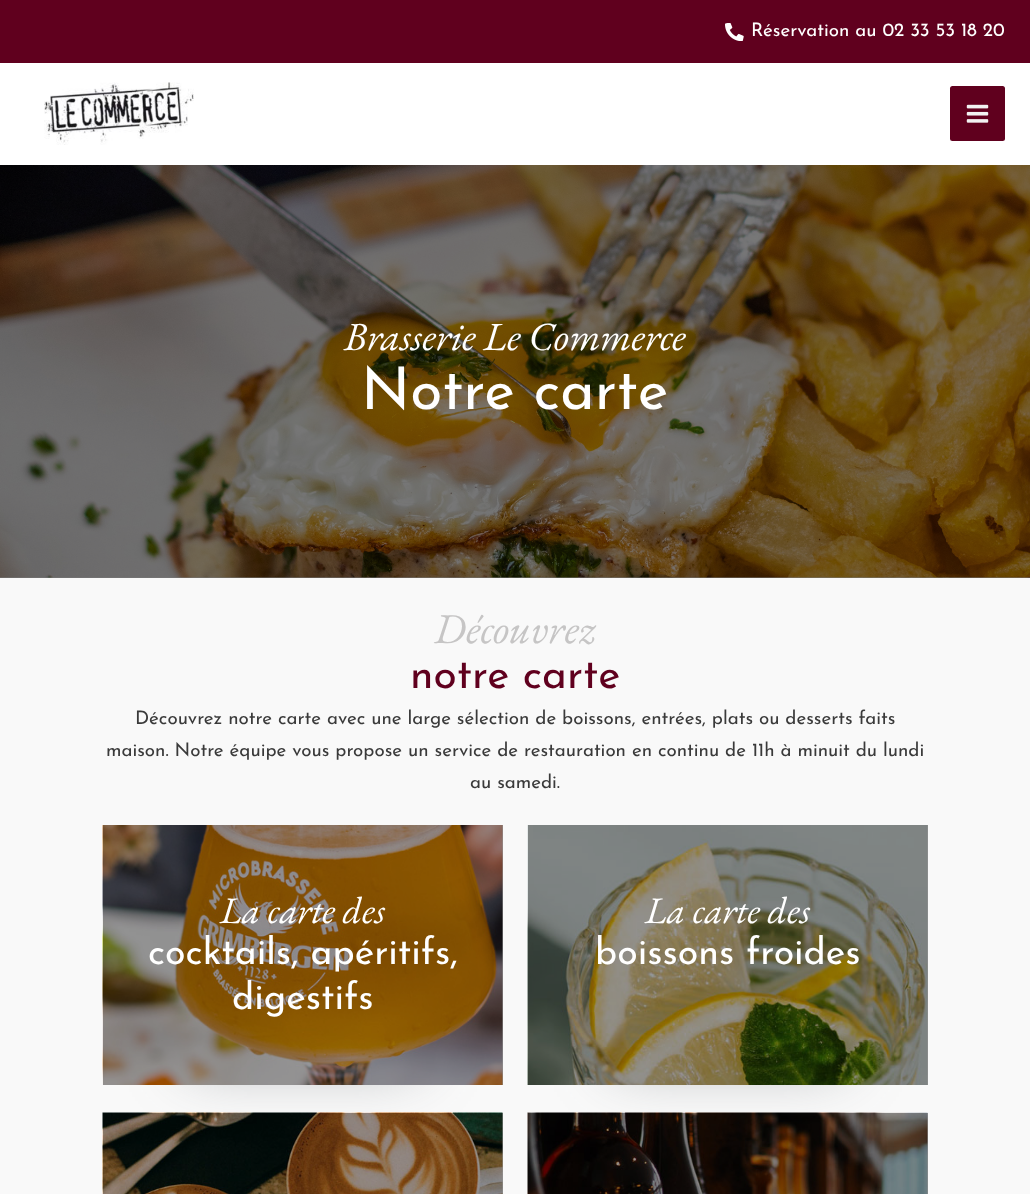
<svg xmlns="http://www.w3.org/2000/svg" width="1030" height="1194">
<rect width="100%" height="100%" fill="#fff"/>
<rect y="577" width="1030" height="1" fill="#787878"/>
<rect width="1030" height="63" fill="#60001e"/>
<image x="725" y="23" width="19" height="18" href="media/1.png"/>
<text x="751" y="36" style="font-family:Josefin Sans;font-size:18.75px;fill:#fff">Réservation au 02 33 53 18 20</text>
<image x="44" y="82" width="150" height="63" href="media/2.png"/>
<rect x="950" y="86" width="55" height="55" rx="2.5" fill="#60001e"/>
<image x="966" y="104" width="23" height="19" href="media/3.png"/>
<image x="0" y="165" width="1030" height="413" href="media/4.png"/>
<text x="344" y="350" style="font-family:EB Garamond;font-size:40px;font-style:italic;fill:#fff">Brasserie Le Commerce</text>
<text x="361" y="409" style="font-family:Josefin Sans;font-size:58.75px;fill:#fff">Notre carte</text>
<rect y="578" width="1030" height="616" fill="#f9f9f9"/>
<rect x="927" y="825" width="1" height="260" fill="#959595"/>
<rect x="502" y="825" width="1" height="260" fill="#959595"/>
<text x="434" y="643" style="font-family:EB Garamond;font-size:42.5px;font-style:italic;fill:#c6c5c5">Découvrez</text>
<text x="410" y="688" style="font-family:Josefin Sans;font-size:42.5px;fill:#60001e">notre carte</text>
<text x="135" y="724" style="font-family:Josefin Sans;font-size:18.75px;fill:#3a3a3a">Découvrez notre carte avec une large sélection de boissons, entrées, plats ou desserts faits</text>
<text x="106" y="756" style="font-family:Josefin Sans;font-size:18.75px;fill:#3a3a3a">maison. Notre équipe vous propose un service de restauration en continu de 11h à minuit du lundi</text>
<text x="470" y="788" style="font-family:Josefin Sans;font-size:18.75px;fill:#3a3a3a">au samedi.</text>
<rect x="188" y="973" width="230" height="90" fill="#54595f80" filter="blur(31px)"/>
<image x="102" y="825" width="401" height="260" href="media/5.png"/>
<text x="220" y="923" style="font-family:EB Garamond;font-size:37.5px;font-style:italic;fill:#fff">La carte des</text>
<text x="148" y="964" style="font-family:Josefin Sans;font-size:37.5px;fill:#fff">cocktails, apéritifs,</text>
<text x="232" y="1009" style="font-family:Josefin Sans;font-size:37.5px;fill:#fff">digestifs</text>
<rect x="613" y="973" width="230" height="90" fill="#54595f80" filter="blur(31px)"/>
<image x="527" y="825" width="401" height="260" href="media/6.png"/>
<text x="645" y="923" style="font-family:EB Garamond;font-size:37.5px;font-style:italic;fill:#fff">La carte des</text>
<text x="595" y="964" style="font-family:Josefin Sans;font-size:37.5px;fill:#fff">boissons froides</text>
<image x="102" y="1112" width="401" height="82" href="media/7.png"/>
<rect x="103" y="1113" width="400" height="81" fill="#00000066"/>
<image x="527" y="1112" width="401" height="82" href="media/8.png"/>
<rect x="528" y="1113" width="400" height="81" fill="#00000066"/>
</svg>
